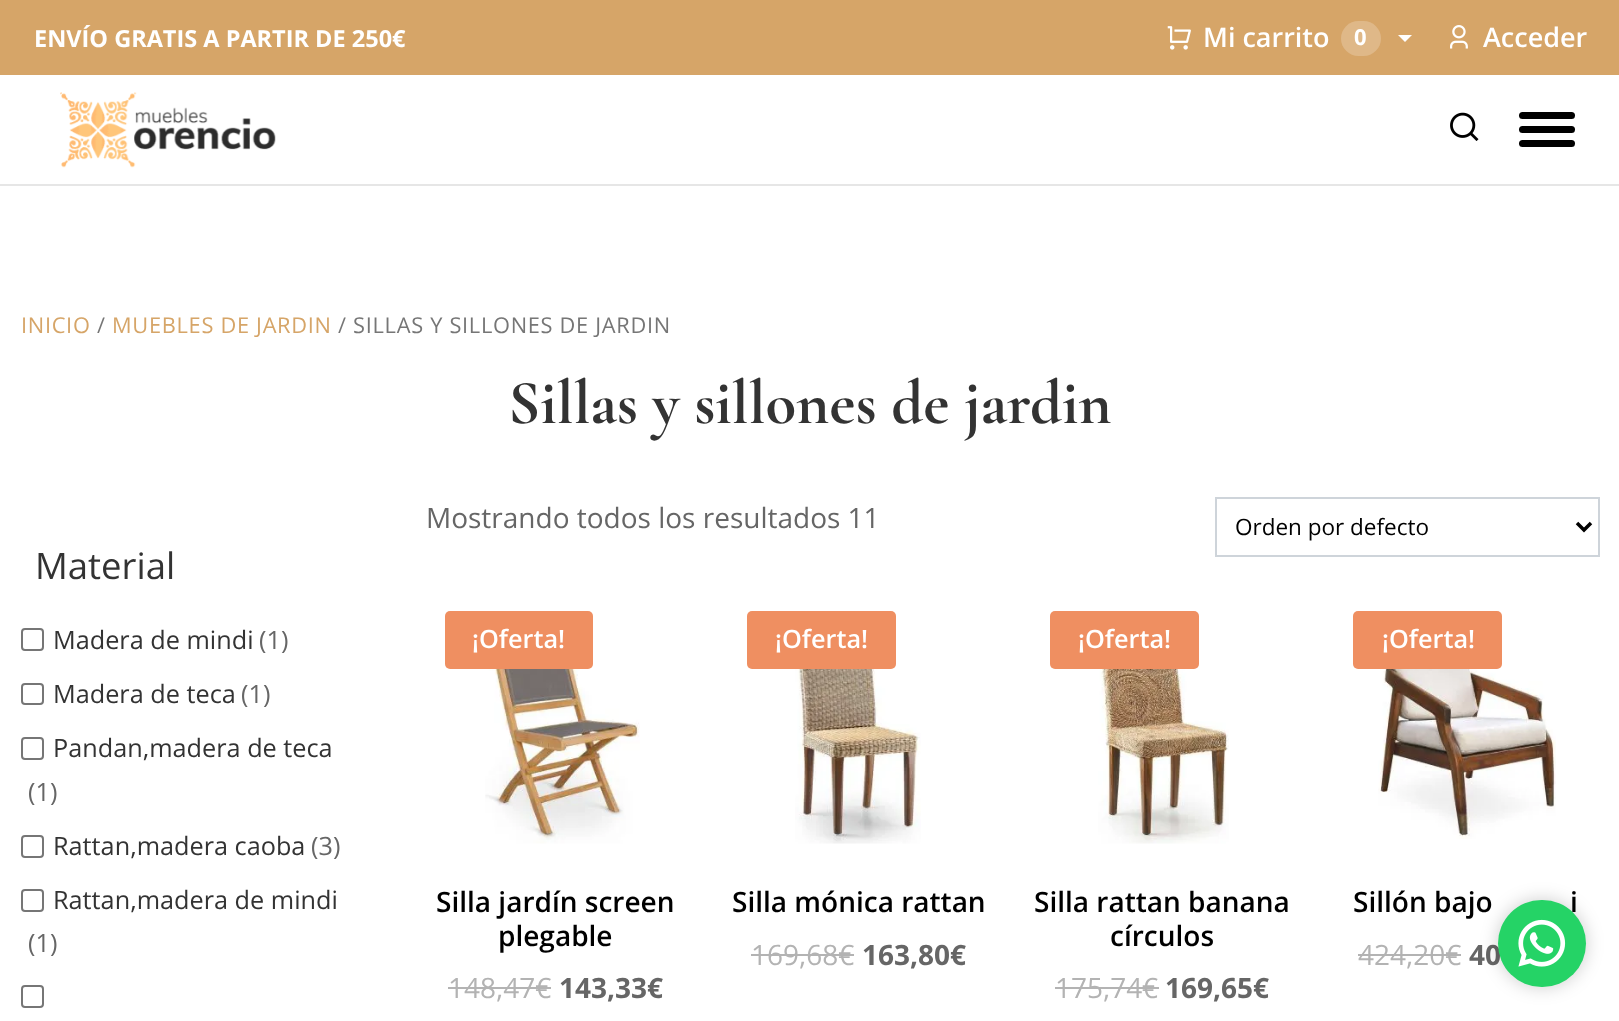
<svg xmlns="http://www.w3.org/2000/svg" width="1619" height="1021">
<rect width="100%" height="100%" fill="#fff"/>
<rect width="1619" height="75" fill="#d6a568"/>
<text x="34" y="47" style="font-family:Open Sans;font-size:23.5px;font-weight:bold;fill:#fff">ENVÍO GRATIS A PARTIR DE 250€</text>
<image x="1167" y="26" width="24" height="24" href="media/1.png"/>
<text x="1203" y="47" style="font-family:Open Sans;font-size:27px;font-weight:600;fill:#fff">Mi carrito</text>
<rect x="1341" y="21" width="40" height="35" rx="17.5" fill="#dfb888"/>
<text x="1354" y="45" style="font-family:Open Sans;font-size:22px;font-weight:bold;fill:#fff">0</text>
<path d="M1398 35h14l-7 7z" fill="#fff"/>
<image x="1450" y="25" width="18" height="24" href="media/2.png"/>
<text x="1483" y="47" style="font-family:Open Sans;font-size:27px;font-weight:600;fill:#fff">Acceder</text>
<path d="M0 184v2h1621v-109h-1v107z" fill="#e6e6e6"/>
<image x="60" y="92" width="216" height="76" href="media/3.png"/>
<image x="1450" y="112" width="29" height="29" href="media/4.png"/>
<rect x="1519" y="112" width="56" height="7" rx="3.5" fill="#000"/>
<rect x="1519" y="126" width="56" height="7" rx="3.5" fill="#000"/>
<rect x="1519" y="140" width="56" height="7" rx="3.5" fill="#000"/>
<text x="21" y="333" style="font-family:Open Sans;font-size:21.8px;letter-spacing:0.7px;fill:#d6a568">INICIO</text>
<text x="97" y="333" style="font-family:Open Sans;font-size:21.8px;letter-spacing:0.7px;fill:#767676">/</text>
<text x="112" y="333" style="font-family:Open Sans;font-size:21.8px;letter-spacing:0.7px;fill:#d6a568">MUEBLES DE JARDIN</text>
<text x="338" y="333" style="font-family:Open Sans;font-size:21.8px;letter-spacing:0.7px;fill:#767676">/ SILLAS Y SILLONES DE JARDIN</text>
<text x="508" y="423" style="font-family:Cormorant Garamond;font-size:62.75px;font-weight:bold;fill:#333">Sillas y sillones de jardin</text>
<text x="35" y="579" style="font-family:Open Sans;font-size:36.5px;fill:#333">Material</text>
<rect x="22" y="629" width="21" height="21" rx="3" fill="none" stroke="#767676" stroke-width="2"/>
<text x="53" y="649" style="font-family:Open Sans;font-size:25.25px;fill:#333">Madera de mindi</text>
<text x="259" y="649" style="font-family:Open Sans;font-size:25.25px;fill:#666">(1)</text>
<rect x="22" y="684" width="21" height="20" rx="3" fill="none" stroke="#767676" stroke-width="2"/>
<text x="53" y="703" style="font-family:Open Sans;font-size:25.25px;fill:#333">Madera de teca</text>
<text x="241" y="703" style="font-family:Open Sans;font-size:25.25px;fill:#666">(1)</text>
<rect x="22" y="738" width="21" height="21" rx="3" fill="none" stroke="#767676" stroke-width="2"/>
<text x="53" y="757" style="font-family:Open Sans;font-size:25.25px;fill:#333">Pandan,madera de teca</text>
<text x="28" y="801" style="font-family:Open Sans;font-size:25.25px;fill:#666">(1)</text>
<rect x="22" y="836" width="21" height="21" rx="3" fill="none" stroke="#767676" stroke-width="2"/>
<text x="53" y="855" style="font-family:Open Sans;font-size:25.25px;fill:#333">Rattan,madera caoba</text>
<text x="311" y="855" style="font-family:Open Sans;font-size:25.25px;fill:#666">(3)</text>
<rect x="22" y="890" width="21" height="21" rx="3" fill="none" stroke="#767676" stroke-width="2"/>
<text x="53" y="909" style="font-family:Open Sans;font-size:25.25px;fill:#333">Rattan,madera de mindi</text>
<text x="28" y="952" style="font-family:Open Sans;font-size:25.25px;fill:#666">(1)</text>
<rect x="22" y="986" width="21" height="21" rx="3" fill="none" stroke="#767676" stroke-width="2"/>
<text x="426" y="528" style="font-family:Open Sans;font-size:28px;fill:#666">Mostrando todos los resultados 11</text>
<rect x="1216" y="498" width="383" height="58" fill="none" stroke="#ced4da" stroke-width="2"/>
<path d="M1577 523l7 7l7-7" fill="none" stroke="#000" stroke-width="3.5"/>
<text x="1235" y="535" style="font-family:Open Sans;font-size:22.5px;fill:#000">Orden por defecto</text>
<image x="485" y="619" width="155" height="225" href="media/5.png"/>
<rect x="445" y="611" width="148" height="58" rx="5" fill="#ef8f61"/>
<text x="472" y="648" style="font-family:Open Sans;font-size:25.25px;font-weight:600;fill:#fff">¡Oferta!</text>
<text x="436" y="912" style="font-family:Open Sans;font-size:28px;font-weight:600;fill:#000">Silla jardín screen</text>
<text x="498" y="946" style="font-family:Open Sans;font-size:28px;font-weight:600;fill:#000">plegable</text>
<text x="448" y="998" style="font-family:Open Sans;font-size:28px;fill:#b3b3b3">148,47€</text>
<rect x="448" y="987" width="103" height="2" fill="#b3b3b3"/>
<text x="559" y="998" style="font-family:Open Sans;font-size:28px;font-weight:bold;fill:#666">143,33€</text>
<image x="795" y="619" width="126" height="225" href="media/6.png"/>
<rect x="747" y="611" width="149" height="58" rx="5" fill="#ef8f61"/>
<text x="775" y="648" style="font-family:Open Sans;font-size:25.25px;font-weight:600;fill:#fff">¡Oferta!</text>
<text x="732" y="912" style="font-family:Open Sans;font-size:28px;font-weight:600;fill:#000">Silla mónica rattan</text>
<text x="751" y="965" style="font-family:Open Sans;font-size:28px;fill:#b3b3b3">169,68€</text>
<rect x="751" y="954" width="103" height="2" fill="#b3b3b3"/>
<text x="862" y="965" style="font-family:Open Sans;font-size:28px;font-weight:bold;fill:#666">163,80€</text>
<image x="1098" y="619" width="131" height="225" href="media/7.png"/>
<rect x="1050" y="611" width="149" height="58" rx="5" fill="#ef8f61"/>
<text x="1078" y="648" style="font-family:Open Sans;font-size:25.25px;font-weight:600;fill:#fff">¡Oferta!</text>
<text x="1034" y="912" style="font-family:Open Sans;font-size:28px;font-weight:600;fill:#000">Silla rattan banana</text>
<text x="1110" y="946" style="font-family:Open Sans;font-size:28px;font-weight:600;fill:#000">círculos</text>
<text x="1055" y="998" style="font-family:Open Sans;font-size:28px;fill:#b3b3b3">175,74</text>
<rect x="1055" y="987" width="88" height="2" fill="#b3b3b3"/>
<text x="1142" y="998" style="font-family:Open Sans;font-size:28px;fill:#b3b3b3">€</text>
<rect x="1143" y="987" width="16" height="2" fill="#b3b3b3"/>
<text x="1165" y="998" style="font-family:Open Sans;font-size:28px;font-weight:bold;fill:#666">169,65€</text>
<image x="1378" y="636" width="178" height="203" href="media/8.png"/>
<rect x="1353" y="611" width="149" height="58" rx="5" fill="#ef8f61"/>
<text x="1382" y="648" style="font-family:Open Sans;font-size:25.25px;font-weight:600;fill:#fff">¡Oferta!</text>
<text x="1353" y="912" style="font-family:Open Sans;font-size:28px;font-weight:600;fill:#000">Sillón bajo</text>
<text x="1570" y="912" style="font-family:Open Sans;font-size:28px;font-weight:600;fill:#000">i</text>
<text x="1358" y="965" style="font-family:Open Sans;font-size:28px;fill:#b3b3b3">424,20€</text>
<rect x="1358" y="954" width="103" height="2" fill="#b3b3b3"/>
<text x="1469" y="965" style="font-family:Open Sans;font-size:28px;font-weight:bold;fill:#666">40</text>
<rect x="1498" y="900" width="88" height="87" rx="43.5" fill="#00000033" filter="blur(9px)"/>
<rect x="1498" y="900" width="88" height="87" rx="43.5" fill="#25d366"/>
<image x="1518" y="919" width="48" height="48" href="media/9.png"/>
</svg>
